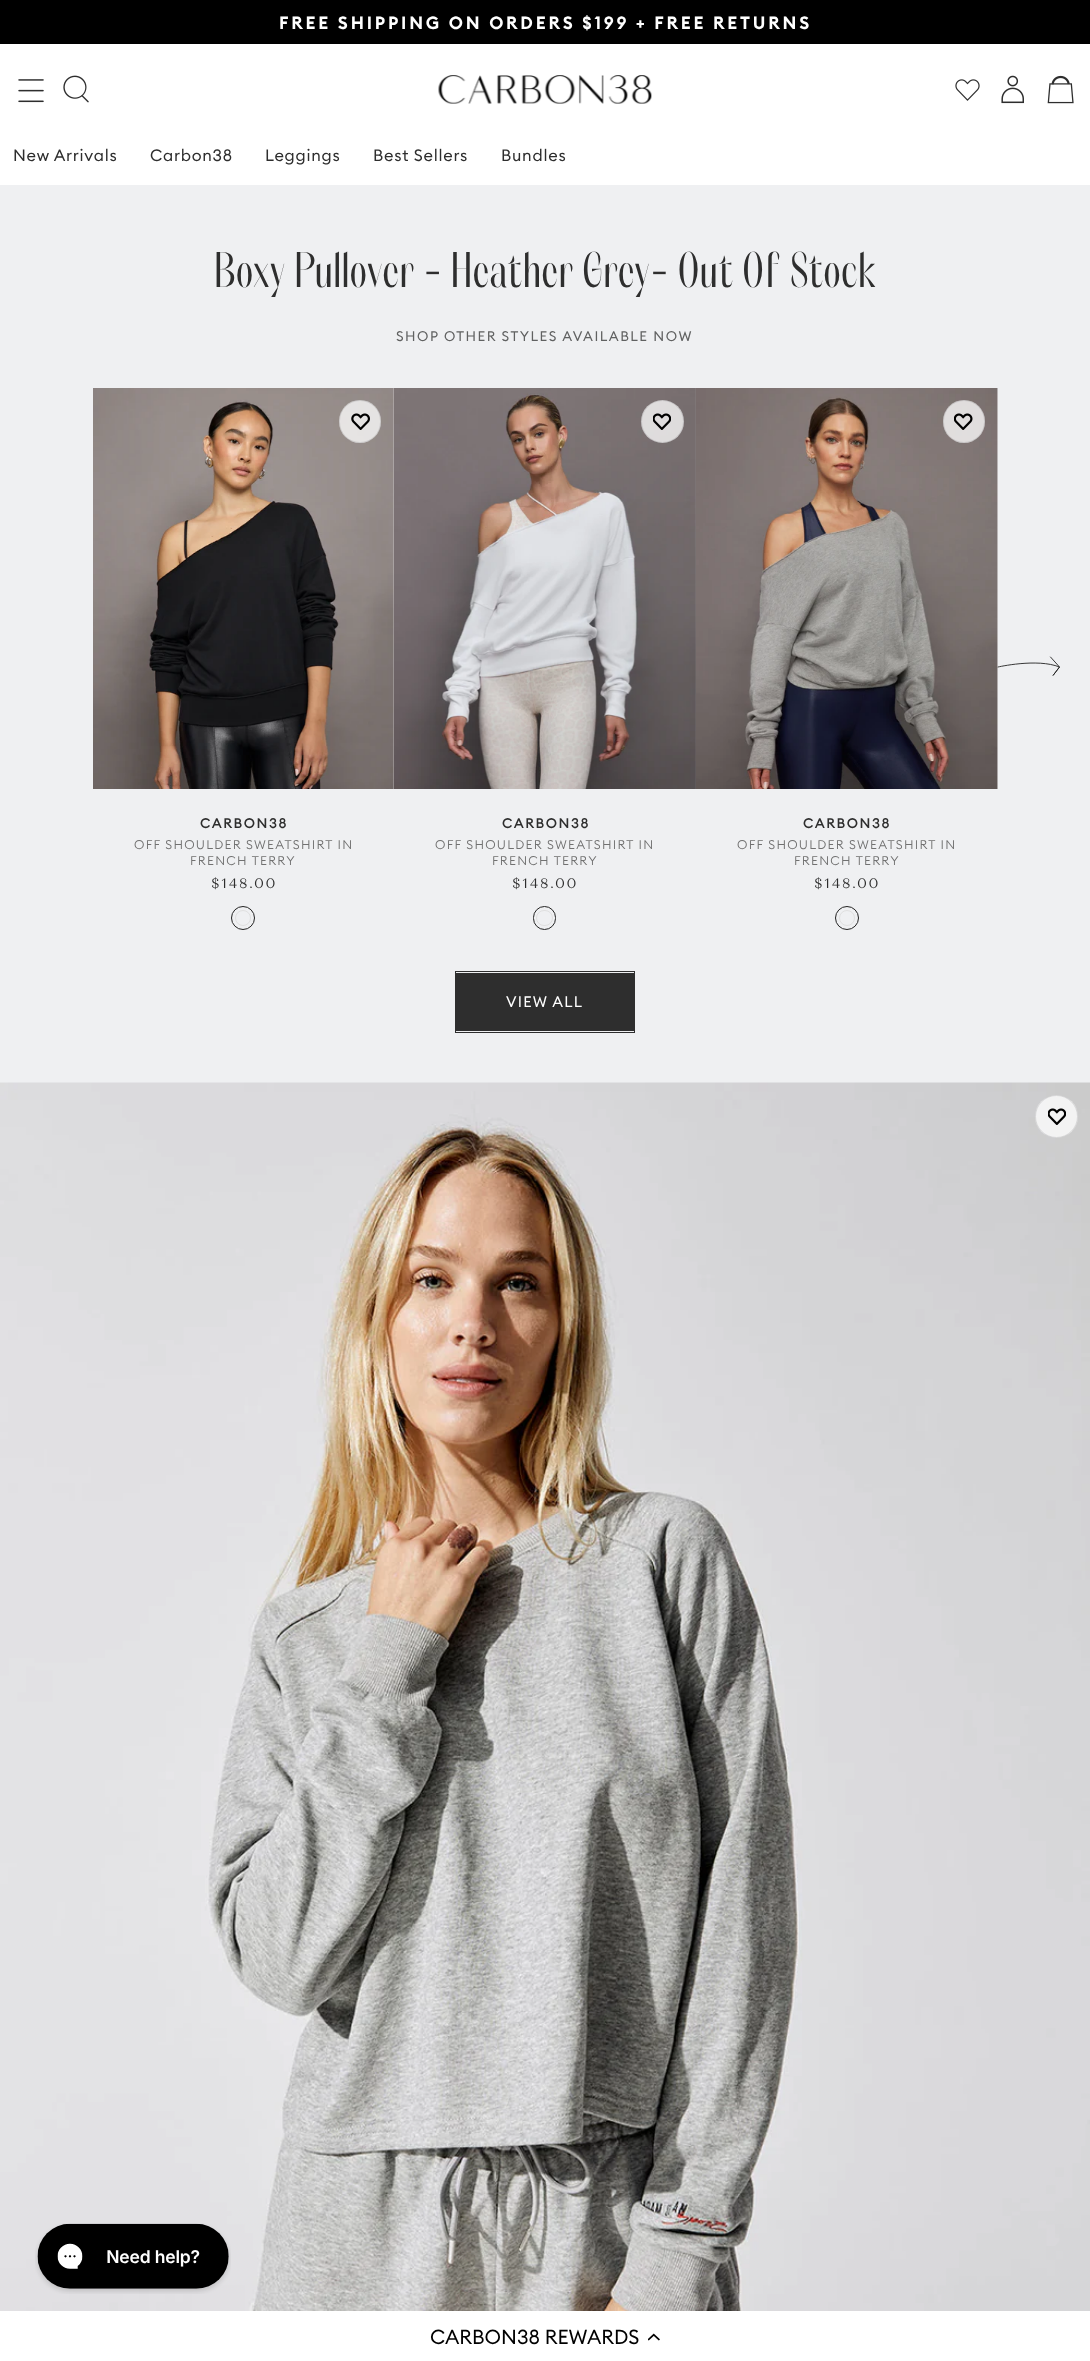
<svg xmlns="http://www.w3.org/2000/svg" width="1090" height="2361">
<rect width="100%" height="100%" fill="#fff"/>
<rect width="1090" height="44" fill="#000"/>
<text x="279" y="29" style="font-family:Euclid;font-size:17.5px;font-weight:600;letter-spacing:2.8px;fill:#fff">FREE SHIPPING ON ORDERS $199 + FREE RETURNS</text>
<image x="18" y="79" width="26" height="24" href="media/1.png"/>
<image x="63" y="75" width="26" height="28" href="media/2.png"/>
<image x="438" y="75" width="214" height="29" href="media/3.png"/>
<image x="955" y="79" width="25" height="22" href="media/4.png"/>
<image x="1001" y="75" width="23" height="29" href="media/5.png"/>
<image x="1047" y="75" width="27" height="29" href="media/6.png"/>
<text x="13" y="161" style="font-family:Euclid;font-size:16.25px;letter-spacing:0.75px;fill:#2e2e2e">New Arrivals</text>
<text x="150" y="161" style="font-family:Euclid;font-size:16.25px;letter-spacing:0.75px;fill:#2e2e2e">Carbon38</text>
<text x="265" y="161" style="font-family:Euclid;font-size:16.25px;letter-spacing:0.75px;fill:#2e2e2e">Leggings</text>
<text x="373" y="161" style="font-family:Euclid;font-size:16.25px;letter-spacing:0.75px;fill:#2e2e2e">Best Sellers</text>
<text x="501" y="161" style="font-family:Euclid;font-size:16.25px;letter-spacing:0.75px;fill:#2e2e2e">Bundles</text>
<rect y="185" width="1090" height="898" fill="#eff0f2"/>
<text x="214" y="287" style="font-family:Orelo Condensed;font-size:50px;letter-spacing:0.75px;fill:#2e2e2e">Boxy Pullover - Heather Grey- Out Of Stock</text>
<text x="396" y="341" style="font-family:Euclid;font-size:13.75px;letter-spacing:1.5px;fill:#606161">SHOP OTHER STYLES AVAILABLE NOW</text>
<path d="M998 667c0 0 39-9 61.5 0l-6.5 8.5l6.5-8.5l-9-10" fill="none" stroke="#232323" stroke-width="0.9" stroke-linecap="round" stroke-linejoin="round"/>
<image x="93" y="388" width="301" height="401" href="media/8.png"/>
<rect x="339" y="400" width="42" height="43" rx="21" fill="#ffffffc2"/>
<rect x="339.5" y="400.5" width="41" height="42" rx="20.5" fill="none" stroke="#1717221f"/>
<image x="351" y="413" width="19" height="17" href="media/7.png"/>
<text x="200" y="828" style="font-family:Euclid;font-size:13.75px;font-weight:500;letter-spacing:1.5px;fill:#2e2e2e">CARBON38</text>
<text x="134" y="849" style="font-family:Euclid;font-size:12.5px;font-weight:300;letter-spacing:1.25px;fill:#717171">OFF SHOULDER SWEATSHIRT IN</text>
<text x="190" y="865" style="font-family:Euclid;font-size:12.5px;font-weight:300;letter-spacing:1.25px;fill:#717171">FRENCH TERRY</text>
<text x="211" y="888" style="font-family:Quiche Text;font-size:13.75px;letter-spacing:1.5px;fill:#2e2e2e">$148.00</text>
<circle cx="243" cy="918" r="7.5" fill="none" stroke="#e0e0e0"/>
<circle cx="243" cy="918" r="11.5" fill="none" stroke="#232323"/>
<image x="394" y="388" width="302" height="401" href="media/10.png"/>
<circle cx="662.5" cy="421.5" r="21.5" fill="#ffffffc2"/>
<circle cx="662.5" cy="421.5" r="21" fill="none" stroke="#1717221f"/>
<image x="653" y="413" width="18" height="17" href="media/9.png"/>
<text x="502" y="828" style="font-family:Euclid;font-size:13.75px;font-weight:500;letter-spacing:1.5px;fill:#2e2e2e">CARBON38</text>
<text x="435" y="849" style="font-family:Euclid;font-size:12.5px;font-weight:300;letter-spacing:1.25px;fill:#717171">OFF SHOULDER SWEATSHIRT IN</text>
<text x="492" y="865" style="font-family:Euclid;font-size:12.5px;font-weight:300;letter-spacing:1.25px;fill:#717171">FRENCH TERRY</text>
<text x="512" y="888" style="font-family:Quiche Text;font-size:13.75px;letter-spacing:1.5px;fill:#2e2e2e">$148.00</text>
<rect x="536.5" y="910.5" width="16" height="15" rx="7.5" fill="none" stroke="#e0e0e0"/>
<rect x="533.5" y="906.5" width="22" height="23" rx="11" fill="none" stroke="#232323"/>
<image x="696" y="388" width="302" height="401" href="media/12.png"/>
<rect x="943" y="400" width="42" height="43" rx="21" fill="#ffffffc2"/>
<rect x="943.5" y="400.5" width="41" height="42" rx="20.5" fill="none" stroke="#1717221f"/>
<image x="954" y="413" width="19" height="17" href="media/11.png"/>
<text x="803" y="828" style="font-family:Euclid;font-size:13.75px;font-weight:500;letter-spacing:1.5px;fill:#2e2e2e">CARBON38</text>
<text x="737" y="849" style="font-family:Euclid;font-size:12.5px;font-weight:300;letter-spacing:1.25px;fill:#717171">OFF SHOULDER SWEATSHIRT IN</text>
<text x="794" y="865" style="font-family:Euclid;font-size:12.5px;font-weight:300;letter-spacing:1.25px;fill:#717171">FRENCH TERRY</text>
<text x="814" y="888" style="font-family:Quiche Text;font-size:13.75px;letter-spacing:1.5px;fill:#2e2e2e">$148.00</text>
<circle cx="847" cy="918" r="7.5" fill="none" stroke="#e0e0e0"/>
<circle cx="847" cy="918" r="11.5" fill="none" stroke="#232323"/>
<rect x="455.5" y="971.5" width="179" height="61" fill="none" stroke="#2e2e2e"/>
<rect x="456" y="973" width="178" height="58" fill="#2e2e2e"/>
<text x="506" y="1007" style="font-family:Euclid;font-size:15px;letter-spacing:1.25px;fill:#fff">VIEW ALL</text>
<image x="0" y="1082" width="1090" height="1229" href="media/13.png"/>
<circle cx="1056.5" cy="1116.5" r="21.5" fill="#ffffffc2"/>
<circle cx="1056.5" cy="1116.5" r="21" fill="none" stroke="#1717221f"/>
<image x="1048" y="1108" width="18" height="17" href="media/14.png"/>
<image x="35" y="2223" width="196" height="71" href="media/15.png"/>
<text x="430" y="2344" style="font-family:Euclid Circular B;font-size:20px;fill:#000">CARBON38 REWARDS</text>
<image x="648" y="2333" width="12" height="8" href="media/16.png"/>
</svg>
